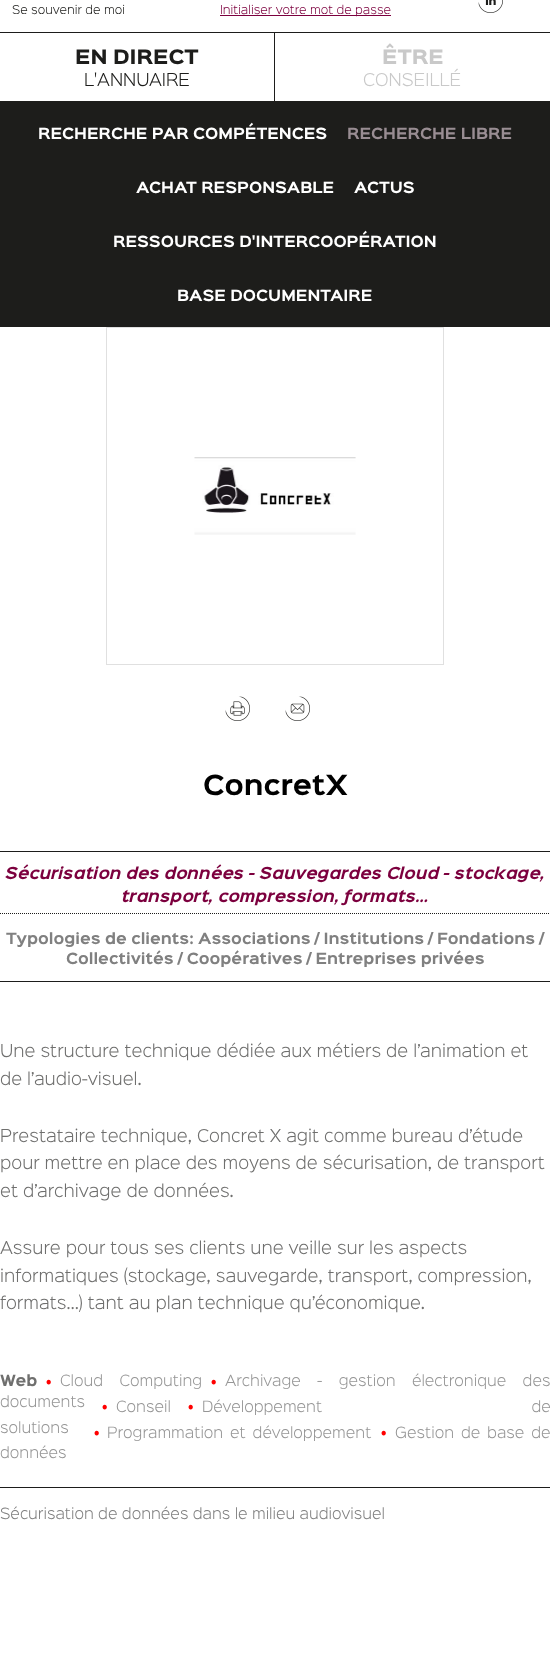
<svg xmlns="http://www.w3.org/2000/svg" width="550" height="1677">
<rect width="100%" height="100%" fill="#fff"/>
<text x="12" y="14" style="font-family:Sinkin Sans;font-size:11px;font-weight:300;fill:#1d1d1b">Se souvenir de moi</text>
<rect x="220" y="15" width="171" height="1" fill="#7c003e"/>
<text x="220" y="14" style="font-family:Sinkin Sans;font-size:11px;font-weight:300;fill:#7c003e">Initialiser votre mot de passe</text>
<rect y="32" width="550" height="1" fill="#1d1d1b"/>
<rect x="274" y="33" width="1" height="68" fill="#1d1d1b"/>
<text x="75" y="64" style="font-family:Sinkin Sans;font-size:18px;font-weight:900;fill:#1d1d1b">EN DIRECT</text>
<text x="84" y="86" style="font-family:Sinkin Sans;font-size:16px;font-weight:300;fill:#1d1d1b">L'ANNUAIRE</text>
<text x="382" y="64" style="font-family:Sinkin Sans;font-size:18px;font-weight:900;fill:#c9c9c9">ÊTRE</text>
<text x="363" y="86" style="font-family:Sinkin Sans;font-size:16px;font-weight:300;fill:#c9c9c9">CONSEILLÉ</text>
<rect y="101" width="550" height="226" fill="#1d1d1b"/>
<text x="38" y="139" style="font-family:Sinkin Sans;font-size:14px;font-weight:bold;fill:#fff">RECHERCHE PAR COMPÉTENCES</text>
<text x="347" y="139" style="font-family:Sinkin Sans;font-size:14px;font-weight:bold;fill:#998d93">RECHERCHE LIBRE</text>
<text x="136" y="193" style="font-family:Sinkin Sans;font-size:14px;font-weight:bold;fill:#fff">ACHAT RESPONSABLE</text>
<text x="354" y="193" style="font-family:Sinkin Sans;font-size:14px;font-weight:bold;fill:#fff">ACTUS</text>
<text x="113" y="247" style="font-family:Sinkin Sans;font-size:14px;font-weight:bold;fill:#fff">RESSOURCES D'INTERCOOPÉRATION</text>
<text x="177" y="301" style="font-family:Sinkin Sans;font-size:14px;font-weight:bold;fill:#fff">BASE DOCUMENTAIRE</text>
<image x="478" y="0" width="25" height="13" href="media/1.png"/>
<rect x="106.5" y="327.5" width="337" height="337" fill="none" stroke="#e0e0e0"/>
<image x="194" y="457" width="162" height="78" href="media/2.png"/>
<image x="225" y="696" width="25" height="25" href="media/3.png"/>
<image x="285" y="696" width="25" height="25" href="media/4.png"/>
<text x="203" y="795" style="font-family:Sinkin Sans;font-size:25px;font-weight:bold;fill:#000">ConcretX</text>
<rect y="851" width="550" height="1" fill="#1d1d1b"/>
<path d="M0 913.5h550" fill="none" stroke="#1d1d1b" stroke-dasharray="1 1"/>
<text x="5" y="879" style="font-family:Sinkin Sans;font-size:15px;font-weight:bold;font-style:italic;fill:#7c003e">Sécurisation des données - Sauvegardes Cloud - stockage,</text>
<text x="121" y="902" style="font-family:Sinkin Sans;font-size:15px;font-weight:bold;font-style:italic;fill:#7c003e">transport, compression, formats…</text>
<rect y="981" width="550" height="1" fill="#1d1d1b"/>
<text x="6" y="944" style="font-family:Sinkin Sans;font-size:14px;font-weight:bold;fill:#808080">Typologies de clients: Associations / Institutions / Fondations /</text>
<text x="66" y="964" style="font-family:Sinkin Sans;font-size:14px;font-weight:bold;fill:#808080">Collectivités / Coopératives / Entreprises privées</text>
<text x="0" y="1057" style="font-family:Sinkin Sans;font-size:16px;font-weight:300;fill:#6f6f6e">Une structure technique dédiée aux métiers de l’animation et</text>
<text x="0" y="1085" style="font-family:Sinkin Sans;font-size:16px;font-weight:300;fill:#6f6f6e">de l’audio-visuel.</text>
<text x="0" y="1142" style="font-family:Sinkin Sans;font-size:16px;font-weight:300;fill:#6f6f6e">Prestataire technique, Concret X agit comme bureau d’étude</text>
<text x="0" y="1169" style="font-family:Sinkin Sans;font-size:16px;font-weight:300;fill:#6f6f6e">pour mettre en place des moyens de sécurisation, de transport</text>
<text x="0" y="1197" style="font-family:Sinkin Sans;font-size:16px;font-weight:300;fill:#6f6f6e">et d’archivage de données.</text>
<text x="0" y="1254" style="font-family:Sinkin Sans;font-size:16px;font-weight:300;fill:#6f6f6e">Assure pour tous ses clients une veille sur les aspects</text>
<text x="0" y="1282" style="font-family:Sinkin Sans;font-size:16px;font-weight:300;fill:#6f6f6e">informatiques (stockage, sauvegarde, transport, compression,</text>
<text x="0" y="1309" style="font-family:Sinkin Sans;font-size:16px;font-weight:300;fill:#6f6f6e">formats…) tant au plan technique qu’économique.</text>
<text x="0" y="1386" style="font-family:Sinkin Sans;font-size:14px;font-weight:bold;fill:#6f6f6e">Web</text>
<text x="45" y="1393" style="font-family:'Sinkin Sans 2';font-size:26px;font-weight:bold;fill:#f00">·</text>
<text x="60" y="1386" word-spacing="12" style="font-family:Sinkin Sans;font-size:14px;font-weight:300;fill:#969696">Cloud Computing</text>
<text x="210" y="1393" style="font-family:'Sinkin Sans 2';font-size:26px;font-weight:bold;fill:#f00">·</text>
<text x="225" y="1386" word-spacing="12" style="font-family:Sinkin Sans;font-size:14px;font-weight:300;fill:#969696">Archivage - gestion électronique des</text>
<text x="0" y="1407" style="font-family:Sinkin Sans;font-size:14px;font-weight:300;fill:#969696">documents</text>
<text x="101" y="1418" style="font-family:'Sinkin Sans 2';font-size:26px;font-weight:bold;fill:#f00">·</text>
<text x="116" y="1412" style="font-family:Sinkin Sans;font-size:14px;font-weight:300;fill:#969696">Conseil</text>
<text x="187" y="1418" style="font-family:'Sinkin Sans 2';font-size:26px;font-weight:bold;fill:#f00">·</text>
<text x="202" y="1412" word-spacing="205" style="font-family:Sinkin Sans;font-size:14px;font-weight:300;fill:#969696">Développement de</text>
<text x="0" y="1433" style="font-family:Sinkin Sans;font-size:14px;font-weight:300;fill:#969696">solutions</text>
<text x="93" y="1444" style="font-family:'Sinkin Sans 2';font-size:26px;font-weight:bold;fill:#f00">·</text>
<text x="107" y="1438" word-spacing="2.5" style="font-family:Sinkin Sans;font-size:14px;font-weight:300;fill:#969696">Programmation et développement</text>
<text x="380" y="1444" style="font-family:'Sinkin Sans 2';font-size:26px;font-weight:bold;fill:#f00">·</text>
<text x="395" y="1438" word-spacing="2.5" style="font-family:Sinkin Sans;font-size:14px;font-weight:300;fill:#969696">Gestion de base de</text>
<text x="0" y="1458" style="font-family:Sinkin Sans;font-size:14px;font-weight:300;fill:#969696">données</text>
<rect y="1487" width="550" height="1" fill="#1d1d1b"/>
<text x="0" y="1519" style="font-family:Sinkin Sans;font-size:14px;font-weight:300;fill:#808080">Sécurisation de données dans le milieu audiovisuel</text>
</svg>
